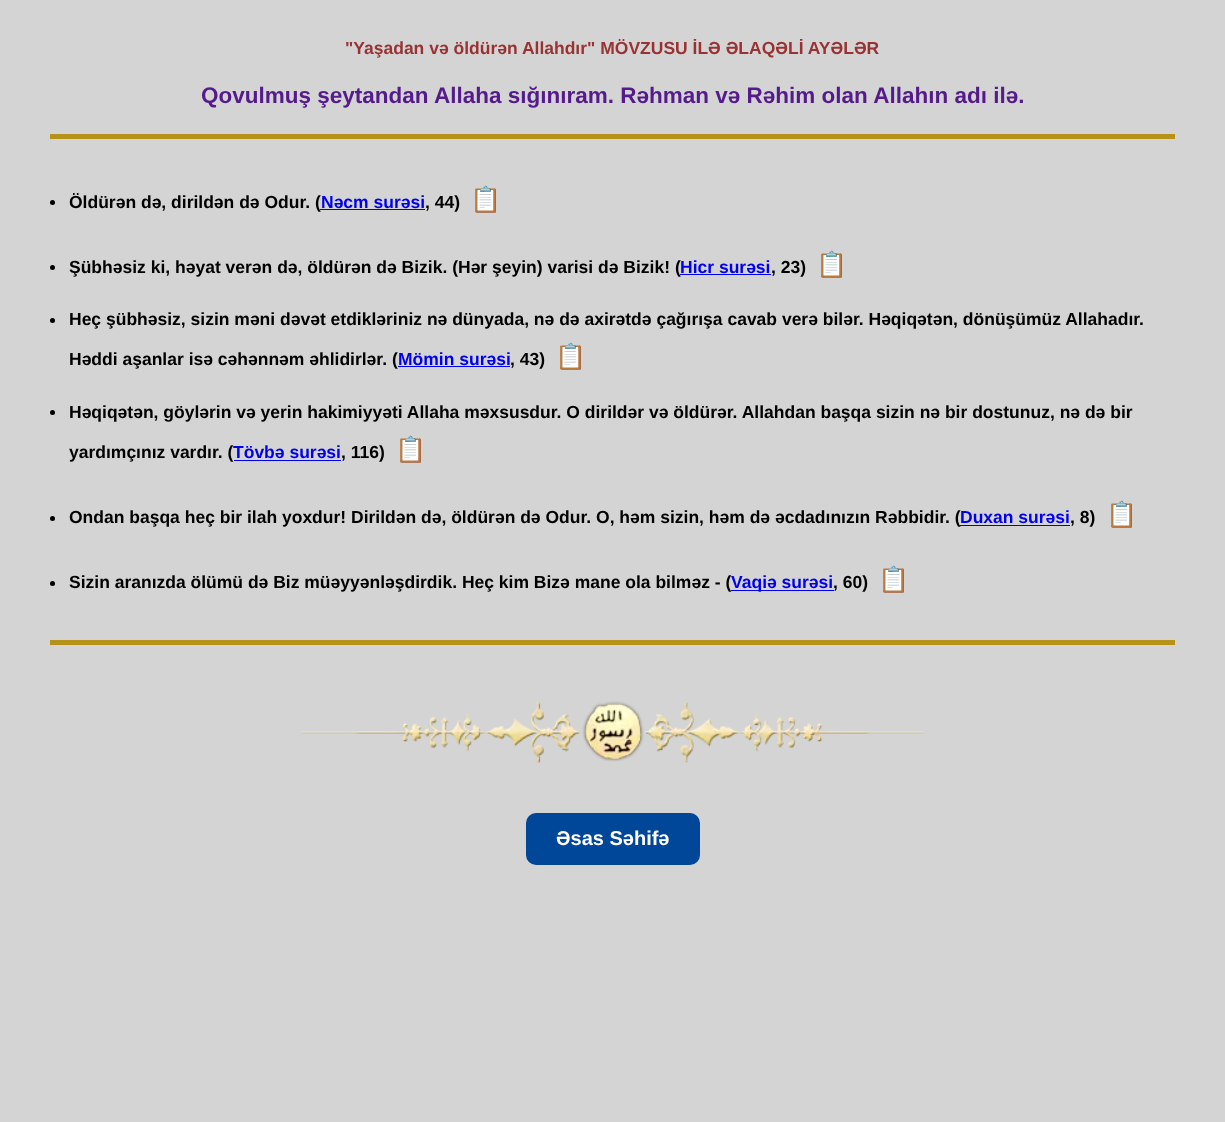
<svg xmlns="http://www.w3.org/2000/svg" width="1225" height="1122">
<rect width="100%" height="100%" fill="#d4d4d4"/>
<text x="345" y="54" style="font-family:Liberation Sans;font-size:17.5px;font-weight:bold;fill:#933">"Yaşadan və öldürən Allahdır" MÖVZUSU İLƏ ƏLAQƏLİ AYƏLƏR</text>
<text x="201" y="103" style="font-family:Liberation Sans;font-size:22.5px;font-weight:bold;fill:#551a8b">Qovulmuş şeytandan Allaha sığınıram. Rəhman və Rəhim olan Allahın adı ilə.</text>
<rect x="50" y="134" width="1125" height="5" fill="#b69218"/>
<rect x="50" y="640" width="1125" height="5" fill="#b69218"/>
<circle cx="52.5" cy="202.5" r="2.5" fill="#000"/>
<text x="69" y="208" style="font-family:Liberation Sans;font-size:17.5px;font-weight:bold;fill:#000">Öldürən də, dirildən də Odur. (</text>
<text x="321" y="208" style="font-family:Liberation Sans;font-size:17.5px;font-weight:bold;fill:#00e">Nəcm surəsi</text>
<rect x="320" y="209" width="105" height="1" fill="#00e"/>
<text x="425" y="208" style="font-family:Liberation Sans;font-size:17.5px;font-weight:bold;fill:#000">, 44)</text>
<text x="470" y="208" style="font-family:Noto Color Emoji;font-size:25px;font-weight:bold;fill:#000">📋</text>
<circle cx="52.5" cy="267.5" r="2.5" fill="#000"/>
<text x="69" y="273" style="font-family:Liberation Sans;font-size:17.5px;font-weight:bold;fill:#000">Şübhəsiz ki, həyat verən də, öldürən də Bizik. (Hər şeyin) varisi də Bizik! (</text>
<text x="680" y="273" style="font-family:Liberation Sans;font-size:17.5px;font-weight:bold;fill:#00e">Hicr surəsi</text>
<rect x="680" y="274" width="91" height="1" fill="#00e"/>
<text x="771" y="273" style="font-family:Liberation Sans;font-size:17.5px;font-weight:bold;fill:#000">, 23)</text>
<text x="816" y="273" style="font-family:Noto Color Emoji;font-size:25px;font-weight:bold;fill:#000">📋</text>
<circle cx="52.5" cy="320.5" r="2.5" fill="#000"/>
<text x="69" y="325" style="font-family:Liberation Sans;font-size:17.5px;font-weight:bold;fill:#000">Heç şübhəsiz, sizin məni dəvət etdikləriniz nə dünyada, nə də axirətdə çağırışa cavab verə bilər. Həqiqətən, dönüşümüz Allahadır.</text>
<text x="69" y="365" style="font-family:Liberation Sans;font-size:17.5px;font-weight:bold;fill:#000">Həddi aşanlar isə cəhənnəm əhlidirlər. (</text>
<text x="398" y="365" style="font-family:Liberation Sans;font-size:17.5px;font-weight:bold;fill:#00e">Mömin surəsi</text>
<rect x="398" y="366" width="112" height="1" fill="#00e"/>
<text x="510" y="365" style="font-family:Liberation Sans;font-size:17.5px;font-weight:bold;fill:#000">, 43)</text>
<text x="555" y="365" style="font-family:Noto Color Emoji;font-size:25px;font-weight:bold;fill:#000">📋</text>
<circle cx="52.5" cy="412.5" r="2.5" fill="#000"/>
<text x="69" y="418" style="font-family:Liberation Sans;font-size:17.5px;font-weight:bold;fill:#000">Həqiqətən, göylərin və yerin hakimiyyəti Allaha məxsusdur. O dirildər və öldürər. Allahdan başqa sizin nə bir dostunuz, nə də bir</text>
<text x="69" y="458" style="font-family:Liberation Sans;font-size:17.5px;font-weight:bold;fill:#000">yardımçınız vardır. (</text>
<text x="233" y="458" style="font-family:Liberation Sans;font-size:17.5px;font-weight:bold;fill:#00e">Tövbə surəsi</text>
<rect x="234" y="460" width="107" height="1" fill="#00e"/>
<text x="341" y="458" style="font-family:Liberation Sans;font-size:17.5px;font-weight:bold;fill:#000">, 116)</text>
<text x="395" y="458" style="font-family:Noto Color Emoji;font-size:25px;font-weight:bold;fill:#000">📋</text>
<circle cx="52.5" cy="518.5" r="2.5" fill="#000"/>
<text x="69" y="523" style="font-family:Liberation Sans;font-size:17.5px;font-weight:bold;fill:#000">Ondan başqa heç bir ilah yoxdur! Dirildən də, öldürən də Odur. O, həm sizin, həm də əcdadınızın Rəbbidir. (</text>
<text x="960" y="523" style="font-family:Liberation Sans;font-size:17.5px;font-weight:bold;fill:#00e">Duxan surəsi</text>
<rect x="960" y="525" width="110" height="1" fill="#00e"/>
<text x="1070" y="523" style="font-family:Liberation Sans;font-size:17.5px;font-weight:bold;fill:#000">, 8)</text>
<text x="1106" y="523" style="font-family:Noto Color Emoji;font-size:25px;font-weight:bold;fill:#000">📋</text>
<circle cx="52.5" cy="583.5" r="2.5" fill="#000"/>
<text x="69" y="588" style="font-family:Liberation Sans;font-size:17.5px;font-weight:bold;fill:#000">Sizin aranızda ölümü də Biz müəyyənləşdirdik. Heç kim Bizə mane ola bilməz - (</text>
<rect x="731" y="590" width="103" height="1" fill="#00e"/>
<text x="731" y="588" style="font-family:Liberation Sans;font-size:17.5px;font-weight:bold;fill:#00e">Vaqiə surəsi</text>
<text x="833" y="588" style="font-family:Liberation Sans;font-size:17.5px;font-weight:bold;fill:#000">, 60)</text>
<text x="878" y="588" style="font-family:Noto Color Emoji;font-size:25px;font-weight:bold;fill:#000">📋</text>
<image x="300" y="700" width="624" height="63" href="media/1.png"/>
<rect x="526" y="813" width="174" height="52" rx="10" fill="#004699"/>
<text x="556" y="845" style="font-family:Liberation Sans;font-size:20px;font-weight:bold;fill:#fff">Əsas Səhifə</text>
</svg>
